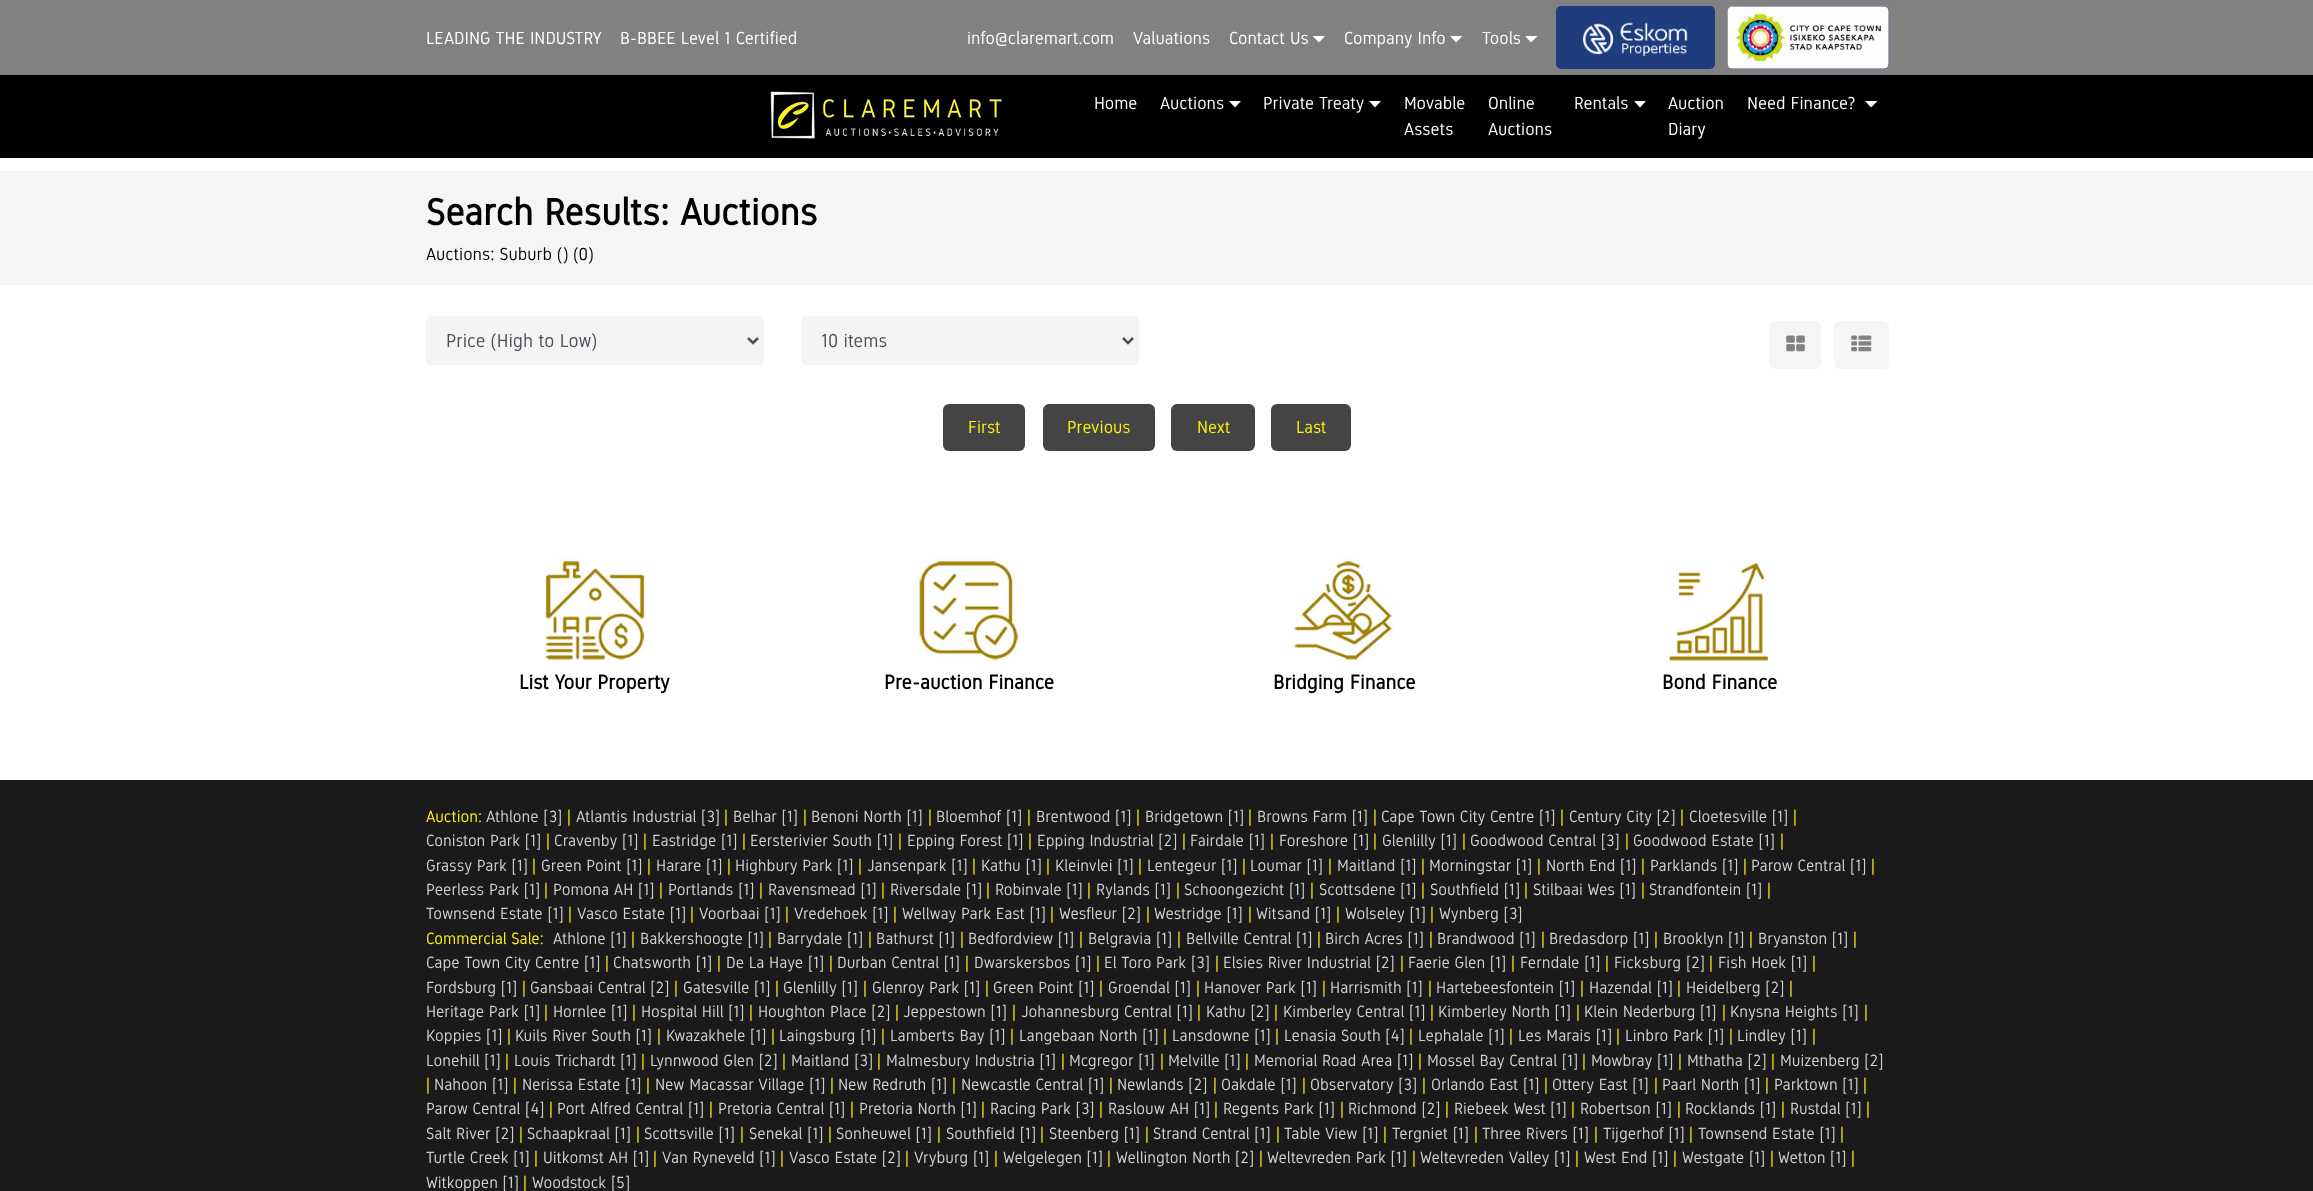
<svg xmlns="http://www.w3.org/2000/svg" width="2313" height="1191">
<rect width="100%" height="100%" fill="#fff"/>
<rect width="2313" height="75" fill="#818181"/>
<text x="426" y="44" style="font-family:Gidole;font-size:17.5px;fill:#fff">LEADING THE INDUSTRY</text>
<text x="620" y="44" style="font-family:Gidole;font-size:17.5px;fill:#fff">B-BBEE Level 1 Certified</text>
<text x="967" y="44" style="font-family:Gidole;font-size:17.5px;fill:#fff">info@claremart.com</text>
<text x="1133" y="44" style="font-family:Gidole;font-size:17.5px;fill:#fff">Valuations</text>
<text x="1229" y="44" style="font-family:Gidole;font-size:17.5px;fill:#fff">Contact Us</text>
<path d="M1312.5 36h12.5l-6 6.5z" fill="#fff"/>
<text x="1344" y="44" style="font-family:Gidole;font-size:17.5px;fill:#fff">Company Info</text>
<path d="M1450 36h12.5l-6.5 6.5z" fill="#fff"/>
<text x="1482" y="44" style="font-family:Gidole;font-size:17.5px;fill:#fff">Tools</text>
<path d="M1525 36h12.5l-6.5 6.5z" fill="#fff"/>
<rect x="1556" y="6" width="159" height="63" rx="5" fill="#1f3c7f"/>
<image x="1583" y="22" width="105" height="34" href="media/1.png"/>
<rect x="1728" y="6" width="161" height="63" rx="5" fill="#1f3c7f"/>
<image x="1727" y="6" width="162" height="63" href="media/2.png"/>
<rect y="75" width="2313" height="83" fill="#000"/>
<image x="770" y="91" width="232" height="48" href="media/3.png"/>
<text x="1094" y="109" style="font-family:Gidole;font-size:17.5px;fill:#fff">Home</text>
<text x="1160" y="109" style="font-family:Gidole;font-size:17.5px;fill:#fff">Auctions</text>
<path d="M1229 101h12l-6 6.5z" fill="#fff"/>
<text x="1263" y="109" style="font-family:Gidole;font-size:17.5px;fill:#fff">Private Treaty</text>
<path d="M1369 101h12l-6 6.5z" fill="#fff"/>
<text x="1404" y="109" style="font-family:Gidole;font-size:17.5px;fill:#fff">Movable</text>
<text x="1404" y="135" style="font-family:Gidole;font-size:17.5px;fill:#fff">Assets</text>
<text x="1488" y="109" style="font-family:Gidole;font-size:17.5px;fill:#fff">Online</text>
<text x="1488" y="135" style="font-family:Gidole;font-size:17.5px;fill:#fff">Auctions</text>
<text x="1574" y="109" style="font-family:Gidole;font-size:17.5px;fill:#fff">Rentals</text>
<path d="M1634 101h12l-6 6.5z" fill="#fff"/>
<text x="1668" y="109" style="font-family:Gidole;font-size:17.5px;fill:#fff">Auction</text>
<text x="1668" y="135" style="font-family:Gidole;font-size:17.5px;fill:#fff">Diary</text>
<text x="1747" y="109" style="font-family:Gidole;font-size:17.5px;fill:#fff">Need Finance?</text>
<path d="M1865 101h12.5l-6.5 6.5z" fill="#fff"/>
<rect y="171" width="2313" height="114" fill="#f5f5f5"/>
<text x="426" y="225" style="font-family:Gidole;font-size:37.5px;font-weight:bold;fill:#000">Search Results: Auctions</text>
<text x="426" y="260" style="font-family:Gidole;font-size:17.5px;fill:#000">Auctions: Suburb () (0)</text>
<rect x="426" y="316" width="338" height="49" rx="5" fill="#f4f4f4"/>
<path d="M748 338l5 5l5-5" fill="none" stroke="#495057" stroke-width="2.5"/>
<text x="446" y="347" style="font-family:Gidole;font-size:18.75px;fill:#495057">Price (High to Low)</text>
<rect x="801" y="316" width="338" height="49" rx="5" fill="#f4f4f4"/>
<path d="M1123 338l5 5l5-5" fill="none" stroke="#495057" stroke-width="2.5"/>
<text x="821" y="347" style="font-family:Gidole;font-size:18.75px;fill:#495057">10 items</text>
<rect x="1769" y="321" width="52" height="48" rx="6" fill="#f5f5f5"/>
<image x="1786" y="335" width="19" height="17" href="media/4.png"/>
<rect x="1834" y="321" width="55" height="48" rx="6" fill="#f5f5f5"/>
<image x="1851" y="335" width="21" height="17" href="media/5.png"/>
<rect x="943" y="404" width="82" height="47" rx="6" fill="#444"/>
<text x="968" y="433" style="font-family:Gidole;font-size:17.5px;fill:#fff211">First</text>
<rect x="1043" y="404" width="112" height="47" rx="6" fill="#444"/>
<text x="1067" y="433" style="font-family:Gidole;font-size:17.5px;fill:#fff211">Previous</text>
<rect x="1171" y="404" width="84" height="47" rx="6" fill="#444"/>
<text x="1197" y="433" style="font-family:Gidole;font-size:17.5px;fill:#fff211">Next</text>
<rect x="1271" y="404" width="80" height="47" rx="6" fill="#444"/>
<text x="1296" y="433" style="font-family:Gidole;font-size:17.5px;fill:#fff211">Last</text>
<image x="545" y="555" width="100" height="106" href="media/6.png"/>
<text x="519" y="689" style="font-family:Gidole;font-size:20px;font-weight:bold;fill:#000">List Your Property</text>
<image x="919" y="555" width="99" height="106" href="media/7.png"/>
<text x="884" y="689" style="font-family:Gidole;font-size:20px;font-weight:bold;fill:#000">Pre-auction Finance</text>
<image x="1294" y="556" width="99" height="105" href="media/8.png"/>
<text x="1273" y="689" style="font-family:Gidole;font-size:20px;font-weight:bold;fill:#000">Bridging Finance</text>
<image x="1669" y="562" width="99" height="99" href="media/9.png"/>
<text x="1662" y="689" style="font-family:Gidole;font-size:20px;font-weight:bold;fill:#000">Bond Finance</text>
<rect y="780" width="2313" height="411" fill="#1a1a1a"/>
<text x="426" y="822" style="font-family:Gidole;font-size:16.25px;fill:#fff211">Auction:</text>
<text x="486" y="822" style="font-family:Gidole;font-size:16.25px;fill:#d1d1d1">Athlone [3]</text>
<text x="567" y="822" style="font-family:Gidole;font-size:16.25px;fill:#fff211">|</text>
<text x="576" y="822" style="font-family:Gidole;font-size:16.25px;fill:#d1d1d1">Atlantis Industrial [3]</text>
<text x="724" y="822" style="font-family:Gidole;font-size:16.25px;fill:#fff211">|</text>
<text x="733" y="822" style="font-family:Gidole;font-size:16.25px;fill:#d1d1d1">Belhar [1]</text>
<text x="803" y="822" style="font-family:Gidole;font-size:16.25px;fill:#fff211">|</text>
<text x="811" y="822" style="font-family:Gidole;font-size:16.25px;fill:#d1d1d1">Benoni North [1]</text>
<text x="928" y="822" style="font-family:Gidole;font-size:16.25px;fill:#fff211">|</text>
<text x="936" y="822" style="font-family:Gidole;font-size:16.25px;fill:#d1d1d1">Bloemhof [1]</text>
<text x="1027" y="822" style="font-family:Gidole;font-size:16.25px;fill:#fff211">|</text>
<text x="1036" y="822" style="font-family:Gidole;font-size:16.25px;fill:#d1d1d1">Brentwood [1]</text>
<text x="1136" y="822" style="font-family:Gidole;font-size:16.25px;fill:#fff211">|</text>
<text x="1145" y="822" style="font-family:Gidole;font-size:16.25px;fill:#d1d1d1">Bridgetown [1]</text>
<text x="1248" y="822" style="font-family:Gidole;font-size:16.25px;fill:#fff211">|</text>
<text x="1257" y="822" style="font-family:Gidole;font-size:16.25px;fill:#d1d1d1">Browns Farm [1]</text>
<text x="1373" y="822" style="font-family:Gidole;font-size:16.25px;fill:#fff211">|</text>
<text x="1381" y="822" style="font-family:Gidole;font-size:16.25px;fill:#d1d1d1">Cape Town City Centre [1]</text>
<text x="1560" y="822" style="font-family:Gidole;font-size:16.25px;fill:#fff211">|</text>
<text x="1569" y="822" style="font-family:Gidole;font-size:16.25px;fill:#d1d1d1">Century City [2]</text>
<text x="1680" y="822" style="font-family:Gidole;font-size:16.25px;fill:#fff211">|</text>
<text x="1689" y="822" style="font-family:Gidole;font-size:16.25px;fill:#d1d1d1">Cloetesville [1]</text>
<text x="1793" y="822" style="font-family:Gidole;font-size:16.25px;fill:#fff211">|</text>
<text x="426" y="846" style="font-family:Gidole;font-size:16.25px;fill:#d1d1d1">Coniston Park [1]</text>
<text x="546" y="846" style="font-family:Gidole;font-size:16.25px;fill:#fff211">|</text>
<text x="554" y="846" style="font-family:Gidole;font-size:16.25px;fill:#d1d1d1">Cravenby [1]</text>
<text x="643" y="846" style="font-family:Gidole;font-size:16.25px;fill:#fff211">|</text>
<text x="652" y="846" style="font-family:Gidole;font-size:16.25px;fill:#d1d1d1">Eastridge [1]</text>
<text x="742" y="846" style="font-family:Gidole;font-size:16.25px;fill:#fff211">|</text>
<text x="750" y="846" style="font-family:Gidole;font-size:16.25px;fill:#d1d1d1">Eersterivier South [1]</text>
<text x="898" y="846" style="font-family:Gidole;font-size:16.25px;fill:#fff211">|</text>
<text x="907" y="846" style="font-family:Gidole;font-size:16.25px;fill:#d1d1d1">Epping Forest [1]</text>
<text x="1028" y="846" style="font-family:Gidole;font-size:16.25px;fill:#fff211">|</text>
<text x="1037" y="846" style="font-family:Gidole;font-size:16.25px;fill:#d1d1d1">Epping Industrial [2]</text>
<text x="1182" y="846" style="font-family:Gidole;font-size:16.25px;fill:#fff211">|</text>
<text x="1190" y="846" style="font-family:Gidole;font-size:16.25px;fill:#d1d1d1">Fairdale [1]</text>
<text x="1270" y="846" style="font-family:Gidole;font-size:16.25px;fill:#fff211">|</text>
<text x="1279" y="846" style="font-family:Gidole;font-size:16.25px;fill:#d1d1d1">Foreshore [1]</text>
<text x="1373" y="846" style="font-family:Gidole;font-size:16.25px;fill:#fff211">|</text>
<text x="1382" y="846" style="font-family:Gidole;font-size:16.25px;fill:#d1d1d1">Glenlilly [1]</text>
<text x="1462" y="846" style="font-family:Gidole;font-size:16.25px;fill:#fff211">|</text>
<text x="1470" y="846" style="font-family:Gidole;font-size:16.25px;fill:#d1d1d1">Goodwood Central [3]</text>
<text x="1625" y="846" style="font-family:Gidole;font-size:16.25px;fill:#fff211">|</text>
<text x="1633" y="846" style="font-family:Gidole;font-size:16.25px;fill:#d1d1d1">Goodwood Estate [1]</text>
<text x="1780" y="846" style="font-family:Gidole;font-size:16.25px;fill:#fff211">|</text>
<text x="426" y="871" style="font-family:Gidole;font-size:16.25px;fill:#d1d1d1">Grassy Park [1]</text>
<text x="532" y="871" style="font-family:Gidole;font-size:16.25px;fill:#fff211">|</text>
<text x="541" y="871" style="font-family:Gidole;font-size:16.25px;fill:#d1d1d1">Green Point [1]</text>
<text x="647" y="871" style="font-family:Gidole;font-size:16.25px;fill:#fff211">|</text>
<text x="656" y="871" style="font-family:Gidole;font-size:16.25px;fill:#d1d1d1">Harare [1]</text>
<text x="727" y="871" style="font-family:Gidole;font-size:16.25px;fill:#fff211">|</text>
<text x="735" y="871" style="font-family:Gidole;font-size:16.25px;fill:#d1d1d1">Highbury Park [1]</text>
<text x="858" y="871" style="font-family:Gidole;font-size:16.25px;fill:#fff211">|</text>
<text x="867" y="871" style="font-family:Gidole;font-size:16.25px;fill:#d1d1d1">Jansenpark [1]</text>
<text x="972" y="871" style="font-family:Gidole;font-size:16.25px;fill:#fff211">|</text>
<text x="981" y="871" style="font-family:Gidole;font-size:16.25px;fill:#d1d1d1">Kathu [1]</text>
<text x="1046" y="871" style="font-family:Gidole;font-size:16.25px;fill:#fff211">|</text>
<text x="1055" y="871" style="font-family:Gidole;font-size:16.25px;fill:#d1d1d1">Kleinvlei [1]</text>
<text x="1138" y="871" style="font-family:Gidole;font-size:16.25px;fill:#fff211">|</text>
<text x="1147" y="871" style="font-family:Gidole;font-size:16.25px;fill:#d1d1d1">Lentegeur [1]</text>
<text x="1242" y="871" style="font-family:Gidole;font-size:16.25px;fill:#fff211">|</text>
<text x="1250" y="871" style="font-family:Gidole;font-size:16.25px;fill:#d1d1d1">Loumar [1]</text>
<text x="1328" y="871" style="font-family:Gidole;font-size:16.25px;fill:#fff211">|</text>
<text x="1337" y="871" style="font-family:Gidole;font-size:16.25px;fill:#d1d1d1">Maitland [1]</text>
<text x="1421" y="871" style="font-family:Gidole;font-size:16.25px;fill:#fff211">|</text>
<text x="1429" y="871" style="font-family:Gidole;font-size:16.25px;fill:#d1d1d1">Morningstar [1]</text>
<text x="1537" y="871" style="font-family:Gidole;font-size:16.25px;fill:#fff211">|</text>
<text x="1546" y="871" style="font-family:Gidole;font-size:16.25px;fill:#d1d1d1">North End [1]</text>
<text x="1641" y="871" style="font-family:Gidole;font-size:16.25px;fill:#fff211">|</text>
<text x="1650" y="871" style="font-family:Gidole;font-size:16.25px;fill:#d1d1d1">Parklands [1]</text>
<text x="1743" y="871" style="font-family:Gidole;font-size:16.25px;fill:#fff211">|</text>
<text x="1751" y="871" style="font-family:Gidole;font-size:16.25px;fill:#d1d1d1">Parow Central [1]</text>
<text x="1871" y="871" style="font-family:Gidole;font-size:16.25px;fill:#fff211">|</text>
<text x="426" y="895" style="font-family:Gidole;font-size:16.25px;fill:#d1d1d1">Peerless Park [1]</text>
<text x="544" y="895" style="font-family:Gidole;font-size:16.25px;fill:#fff211">|</text>
<text x="553" y="895" style="font-family:Gidole;font-size:16.25px;fill:#d1d1d1">Pomona AH [1]</text>
<text x="659" y="895" style="font-family:Gidole;font-size:16.25px;fill:#fff211">|</text>
<text x="668" y="895" style="font-family:Gidole;font-size:16.25px;fill:#d1d1d1">Portlands [1]</text>
<text x="759" y="895" style="font-family:Gidole;font-size:16.25px;fill:#fff211">|</text>
<text x="768" y="895" style="font-family:Gidole;font-size:16.25px;fill:#d1d1d1">Ravensmead [1]</text>
<text x="881" y="895" style="font-family:Gidole;font-size:16.25px;fill:#fff211">|</text>
<text x="890" y="895" style="font-family:Gidole;font-size:16.25px;fill:#d1d1d1">Riversdale [1]</text>
<text x="986" y="895" style="font-family:Gidole;font-size:16.25px;fill:#fff211">|</text>
<text x="995" y="895" style="font-family:Gidole;font-size:16.25px;fill:#d1d1d1">Robinvale [1]</text>
<text x="1087" y="895" style="font-family:Gidole;font-size:16.25px;fill:#fff211">|</text>
<text x="1096" y="895" style="font-family:Gidole;font-size:16.25px;fill:#d1d1d1">Rylands [1]</text>
<text x="1176" y="895" style="font-family:Gidole;font-size:16.25px;fill:#fff211">|</text>
<text x="1184" y="895" style="font-family:Gidole;font-size:16.25px;fill:#d1d1d1">Schoongezicht [1]</text>
<text x="1310" y="895" style="font-family:Gidole;font-size:16.25px;fill:#fff211">|</text>
<text x="1319" y="895" style="font-family:Gidole;font-size:16.25px;fill:#d1d1d1">Scottsdene [1]</text>
<text x="1421" y="895" style="font-family:Gidole;font-size:16.25px;fill:#fff211">|</text>
<text x="1430" y="895" style="font-family:Gidole;font-size:16.25px;fill:#d1d1d1">Southfield [1]</text>
<text x="1524" y="895" style="font-family:Gidole;font-size:16.25px;fill:#fff211">|</text>
<text x="1533" y="895" style="font-family:Gidole;font-size:16.25px;fill:#d1d1d1">Stilbaai Wes [1]</text>
<text x="1641" y="895" style="font-family:Gidole;font-size:16.25px;fill:#fff211">|</text>
<text x="1649" y="895" style="font-family:Gidole;font-size:16.25px;fill:#d1d1d1">Strandfontein [1]</text>
<text x="1767" y="895" style="font-family:Gidole;font-size:16.25px;fill:#fff211">|</text>
<text x="426" y="919" style="font-family:Gidole;font-size:16.25px;fill:#d1d1d1">Townsend Estate [1]</text>
<text x="568" y="919" style="font-family:Gidole;font-size:16.25px;fill:#fff211">|</text>
<text x="577" y="919" style="font-family:Gidole;font-size:16.25px;fill:#d1d1d1">Vasco Estate [1]</text>
<text x="690" y="919" style="font-family:Gidole;font-size:16.25px;fill:#fff211">|</text>
<text x="699" y="919" style="font-family:Gidole;font-size:16.25px;fill:#d1d1d1">Voorbaai [1]</text>
<text x="785" y="919" style="font-family:Gidole;font-size:16.25px;fill:#fff211">|</text>
<text x="794" y="919" style="font-family:Gidole;font-size:16.25px;fill:#d1d1d1">Vredehoek [1]</text>
<text x="893" y="919" style="font-family:Gidole;font-size:16.25px;fill:#fff211">|</text>
<text x="902" y="919" style="font-family:Gidole;font-size:16.25px;fill:#d1d1d1">Wellway Park East [1]</text>
<text x="1050" y="919" style="font-family:Gidole;font-size:16.25px;fill:#fff211">|</text>
<text x="1059" y="919" style="font-family:Gidole;font-size:16.25px;fill:#d1d1d1">Wesfleur [2]</text>
<text x="1146" y="919" style="font-family:Gidole;font-size:16.25px;fill:#fff211">|</text>
<text x="1154" y="919" style="font-family:Gidole;font-size:16.25px;fill:#d1d1d1">Westridge [1]</text>
<text x="1248" y="919" style="font-family:Gidole;font-size:16.25px;fill:#fff211">|</text>
<text x="1256" y="919" style="font-family:Gidole;font-size:16.25px;fill:#d1d1d1">Witsand [1]</text>
<text x="1336" y="919" style="font-family:Gidole;font-size:16.25px;fill:#fff211">|</text>
<text x="1345" y="919" style="font-family:Gidole;font-size:16.25px;fill:#d1d1d1">Wolseley [1]</text>
<text x="1430" y="919" style="font-family:Gidole;font-size:16.25px;fill:#fff211">|</text>
<text x="1439" y="919" style="font-family:Gidole;font-size:16.25px;fill:#d1d1d1">Wynberg [3]</text>
<text x="426" y="944" style="font-family:Gidole;font-size:16.25px;fill:#fff211">Commercial Sale:</text>
<text x="553" y="944" style="font-family:Gidole;font-size:16.25px;fill:#d1d1d1">Athlone [1]</text>
<text x="631" y="944" style="font-family:Gidole;font-size:16.25px;fill:#fff211">|</text>
<text x="640" y="944" style="font-family:Gidole;font-size:16.25px;fill:#d1d1d1">Bakkershoogte [1]</text>
<text x="768" y="944" style="font-family:Gidole;font-size:16.25px;fill:#fff211">|</text>
<text x="777" y="944" style="font-family:Gidole;font-size:16.25px;fill:#d1d1d1">Barrydale [1]</text>
<text x="868" y="944" style="font-family:Gidole;font-size:16.25px;fill:#fff211">|</text>
<text x="876" y="944" style="font-family:Gidole;font-size:16.25px;fill:#d1d1d1">Bathurst [1]</text>
<text x="960" y="944" style="font-family:Gidole;font-size:16.25px;fill:#fff211">|</text>
<text x="968" y="944" style="font-family:Gidole;font-size:16.25px;fill:#d1d1d1">Bedfordview [1]</text>
<text x="1079" y="944" style="font-family:Gidole;font-size:16.25px;fill:#fff211">|</text>
<text x="1088" y="944" style="font-family:Gidole;font-size:16.25px;fill:#d1d1d1">Belgravia [1]</text>
<text x="1177" y="944" style="font-family:Gidole;font-size:16.25px;fill:#fff211">|</text>
<text x="1186" y="944" style="font-family:Gidole;font-size:16.25px;fill:#d1d1d1">Bellville Central [1]</text>
<text x="1317" y="944" style="font-family:Gidole;font-size:16.25px;fill:#fff211">|</text>
<text x="1325" y="944" style="font-family:Gidole;font-size:16.25px;fill:#d1d1d1">Birch Acres [1]</text>
<text x="1429" y="944" style="font-family:Gidole;font-size:16.25px;fill:#fff211">|</text>
<text x="1437" y="944" style="font-family:Gidole;font-size:16.25px;fill:#d1d1d1">Brandwood [1]</text>
<text x="1541" y="944" style="font-family:Gidole;font-size:16.25px;fill:#fff211">|</text>
<text x="1549" y="944" style="font-family:Gidole;font-size:16.25px;fill:#d1d1d1">Bredasdorp [1]</text>
<text x="1654" y="944" style="font-family:Gidole;font-size:16.25px;fill:#fff211">|</text>
<text x="1663" y="944" style="font-family:Gidole;font-size:16.25px;fill:#d1d1d1">Brooklyn [1]</text>
<text x="1749" y="944" style="font-family:Gidole;font-size:16.25px;fill:#fff211">|</text>
<text x="1758" y="944" style="font-family:Gidole;font-size:16.25px;fill:#d1d1d1">Bryanston [1]</text>
<text x="1853" y="944" style="font-family:Gidole;font-size:16.25px;fill:#fff211">|</text>
<text x="426" y="968" style="font-family:Gidole;font-size:16.25px;fill:#d1d1d1">Cape Town City Centre [1]</text>
<text x="605" y="968" style="font-family:Gidole;font-size:16.25px;fill:#fff211">|</text>
<text x="613" y="968" style="font-family:Gidole;font-size:16.25px;fill:#d1d1d1">Chatsworth [1]</text>
<text x="717" y="968" style="font-family:Gidole;font-size:16.25px;fill:#fff211">|</text>
<text x="726" y="968" style="font-family:Gidole;font-size:16.25px;fill:#d1d1d1">De La Haye [1]</text>
<text x="829" y="968" style="font-family:Gidole;font-size:16.25px;fill:#fff211">|</text>
<text x="837" y="968" style="font-family:Gidole;font-size:16.25px;fill:#d1d1d1">Durban Central [1]</text>
<text x="965" y="968" style="font-family:Gidole;font-size:16.25px;fill:#fff211">|</text>
<text x="974" y="968" style="font-family:Gidole;font-size:16.25px;fill:#d1d1d1">Dwarskersbos [1]</text>
<text x="1096" y="968" style="font-family:Gidole;font-size:16.25px;fill:#fff211">|</text>
<text x="1104" y="968" style="font-family:Gidole;font-size:16.25px;fill:#d1d1d1">El Toro Park [3]</text>
<text x="1215" y="968" style="font-family:Gidole;font-size:16.25px;fill:#fff211">|</text>
<text x="1223" y="968" style="font-family:Gidole;font-size:16.25px;fill:#d1d1d1">Elsies River Industrial [2]</text>
<text x="1400" y="968" style="font-family:Gidole;font-size:16.25px;fill:#fff211">|</text>
<text x="1408" y="968" style="font-family:Gidole;font-size:16.25px;fill:#d1d1d1">Faerie Glen [1]</text>
<text x="1511" y="968" style="font-family:Gidole;font-size:16.25px;fill:#fff211">|</text>
<text x="1520" y="968" style="font-family:Gidole;font-size:16.25px;fill:#d1d1d1">Ferndale [1]</text>
<text x="1605" y="968" style="font-family:Gidole;font-size:16.25px;fill:#fff211">|</text>
<text x="1614" y="968" style="font-family:Gidole;font-size:16.25px;fill:#d1d1d1">Ficksburg [2]</text>
<text x="1709" y="968" style="font-family:Gidole;font-size:16.25px;fill:#fff211">|</text>
<text x="1718" y="968" style="font-family:Gidole;font-size:16.25px;fill:#d1d1d1">Fish Hoek [1]</text>
<text x="1812" y="968" style="font-family:Gidole;font-size:16.25px;fill:#fff211">|</text>
<text x="426" y="993" style="font-family:Gidole;font-size:16.25px;fill:#d1d1d1">Fordsburg [1]</text>
<text x="522" y="993" style="font-family:Gidole;font-size:16.25px;fill:#fff211">|</text>
<text x="530" y="993" style="font-family:Gidole;font-size:16.25px;fill:#d1d1d1">Gansbaai Central [2]</text>
<text x="674" y="993" style="font-family:Gidole;font-size:16.25px;fill:#fff211">|</text>
<text x="683" y="993" style="font-family:Gidole;font-size:16.25px;fill:#d1d1d1">Gatesville [1]</text>
<text x="775" y="993" style="font-family:Gidole;font-size:16.25px;fill:#fff211">|</text>
<text x="783" y="993" style="font-family:Gidole;font-size:16.25px;fill:#d1d1d1">Glenlilly [1]</text>
<text x="863" y="993" style="font-family:Gidole;font-size:16.25px;fill:#fff211">|</text>
<text x="872" y="993" style="font-family:Gidole;font-size:16.25px;fill:#d1d1d1">Glenroy Park [1]</text>
<text x="985" y="993" style="font-family:Gidole;font-size:16.25px;fill:#fff211">|</text>
<text x="993" y="993" style="font-family:Gidole;font-size:16.25px;fill:#d1d1d1">Green Point [1]</text>
<text x="1099" y="993" style="font-family:Gidole;font-size:16.25px;fill:#fff211">|</text>
<text x="1108" y="993" style="font-family:Gidole;font-size:16.25px;fill:#d1d1d1">Groendal [1]</text>
<text x="1196" y="993" style="font-family:Gidole;font-size:16.25px;fill:#fff211">|</text>
<text x="1204" y="993" style="font-family:Gidole;font-size:16.25px;fill:#d1d1d1">Hanover Park [1]</text>
<text x="1322" y="993" style="font-family:Gidole;font-size:16.25px;fill:#fff211">|</text>
<text x="1330" y="993" style="font-family:Gidole;font-size:16.25px;fill:#d1d1d1">Harrismith [1]</text>
<text x="1428" y="993" style="font-family:Gidole;font-size:16.25px;fill:#fff211">|</text>
<text x="1436" y="993" style="font-family:Gidole;font-size:16.25px;fill:#d1d1d1">Hartebeesfontein [1]</text>
<text x="1580" y="993" style="font-family:Gidole;font-size:16.25px;fill:#fff211">|</text>
<text x="1589" y="993" style="font-family:Gidole;font-size:16.25px;fill:#d1d1d1">Hazendal [1]</text>
<text x="1677" y="993" style="font-family:Gidole;font-size:16.25px;fill:#fff211">|</text>
<text x="1686" y="993" style="font-family:Gidole;font-size:16.25px;fill:#d1d1d1">Heidelberg [2]</text>
<text x="1789" y="993" style="font-family:Gidole;font-size:16.25px;fill:#fff211">|</text>
<text x="426" y="1017" style="font-family:Gidole;font-size:16.25px;fill:#d1d1d1">Heritage Park [1]</text>
<text x="544" y="1017" style="font-family:Gidole;font-size:16.25px;fill:#fff211">|</text>
<text x="553" y="1017" style="font-family:Gidole;font-size:16.25px;fill:#d1d1d1">Hornlee [1]</text>
<text x="632" y="1017" style="font-family:Gidole;font-size:16.25px;fill:#fff211">|</text>
<text x="641" y="1017" style="font-family:Gidole;font-size:16.25px;fill:#d1d1d1">Hospital Hill [1]</text>
<text x="749" y="1017" style="font-family:Gidole;font-size:16.25px;fill:#fff211">|</text>
<text x="758" y="1017" style="font-family:Gidole;font-size:16.25px;fill:#d1d1d1">Houghton Place [2]</text>
<text x="895" y="1017" style="font-family:Gidole;font-size:16.25px;fill:#fff211">|</text>
<text x="903" y="1017" style="font-family:Gidole;font-size:16.25px;fill:#d1d1d1">Jeppestown [1]</text>
<text x="1012" y="1017" style="font-family:Gidole;font-size:16.25px;fill:#fff211">|</text>
<text x="1021" y="1017" style="font-family:Gidole;font-size:16.25px;fill:#d1d1d1">Johannesburg Central [1]</text>
<text x="1197" y="1017" style="font-family:Gidole;font-size:16.25px;fill:#fff211">|</text>
<text x="1206" y="1017" style="font-family:Gidole;font-size:16.25px;fill:#d1d1d1">Kathu [2]</text>
<text x="1274" y="1017" style="font-family:Gidole;font-size:16.25px;fill:#fff211">|</text>
<text x="1283" y="1017" style="font-family:Gidole;font-size:16.25px;fill:#d1d1d1">Kimberley Central [1]</text>
<text x="1430" y="1017" style="font-family:Gidole;font-size:16.25px;fill:#fff211">|</text>
<text x="1438" y="1017" style="font-family:Gidole;font-size:16.25px;fill:#d1d1d1">Kimberley North [1]</text>
<text x="1576" y="1017" style="font-family:Gidole;font-size:16.25px;fill:#fff211">|</text>
<text x="1584" y="1017" style="font-family:Gidole;font-size:16.25px;fill:#d1d1d1">Klein Nederburg [1]</text>
<text x="1722" y="1017" style="font-family:Gidole;font-size:16.25px;fill:#fff211">|</text>
<text x="1730" y="1017" style="font-family:Gidole;font-size:16.25px;fill:#d1d1d1">Knysna Heights [1]</text>
<text x="1864" y="1017" style="font-family:Gidole;font-size:16.25px;fill:#fff211">|</text>
<text x="426" y="1041" style="font-family:Gidole;font-size:16.25px;fill:#d1d1d1">Koppies [1]</text>
<text x="507" y="1041" style="font-family:Gidole;font-size:16.25px;fill:#fff211">|</text>
<text x="515" y="1041" style="font-family:Gidole;font-size:16.25px;fill:#d1d1d1">Kuils River South [1]</text>
<text x="657" y="1041" style="font-family:Gidole;font-size:16.25px;fill:#fff211">|</text>
<text x="666" y="1041" style="font-family:Gidole;font-size:16.25px;fill:#d1d1d1">Kwazakhele [1]</text>
<text x="771" y="1041" style="font-family:Gidole;font-size:16.25px;fill:#fff211">|</text>
<text x="779" y="1041" style="font-family:Gidole;font-size:16.25px;fill:#d1d1d1">Laingsburg [1]</text>
<text x="881" y="1041" style="font-family:Gidole;font-size:16.25px;fill:#fff211">|</text>
<text x="890" y="1041" style="font-family:Gidole;font-size:16.25px;fill:#d1d1d1">Lamberts Bay [1]</text>
<text x="1010" y="1041" style="font-family:Gidole;font-size:16.25px;fill:#fff211">|</text>
<text x="1019" y="1041" style="font-family:Gidole;font-size:16.25px;fill:#d1d1d1">Langebaan North [1]</text>
<text x="1163" y="1041" style="font-family:Gidole;font-size:16.25px;fill:#fff211">|</text>
<text x="1172" y="1041" style="font-family:Gidole;font-size:16.25px;fill:#d1d1d1">Lansdowne [1]</text>
<text x="1275" y="1041" style="font-family:Gidole;font-size:16.25px;fill:#fff211">|</text>
<text x="1284" y="1041" style="font-family:Gidole;font-size:16.25px;fill:#d1d1d1">Lenasia South [4]</text>
<text x="1409" y="1041" style="font-family:Gidole;font-size:16.25px;fill:#fff211">|</text>
<text x="1418" y="1041" style="font-family:Gidole;font-size:16.25px;fill:#d1d1d1">Lephalale [1]</text>
<text x="1509" y="1041" style="font-family:Gidole;font-size:16.25px;fill:#fff211">|</text>
<text x="1518" y="1041" style="font-family:Gidole;font-size:16.25px;fill:#d1d1d1">Les Marais [1]</text>
<text x="1616" y="1041" style="font-family:Gidole;font-size:16.25px;fill:#fff211">|</text>
<text x="1625" y="1041" style="font-family:Gidole;font-size:16.25px;fill:#d1d1d1">Linbro Park [1]</text>
<text x="1729" y="1041" style="font-family:Gidole;font-size:16.25px;fill:#fff211">|</text>
<text x="1737" y="1041" style="font-family:Gidole;font-size:16.25px;fill:#d1d1d1">Lindley [1]</text>
<text x="1812" y="1041" style="font-family:Gidole;font-size:16.25px;fill:#fff211">|</text>
<text x="426" y="1066" style="font-family:Gidole;font-size:16.25px;fill:#d1d1d1">Lonehill [1]</text>
<text x="505" y="1066" style="font-family:Gidole;font-size:16.25px;fill:#fff211">|</text>
<text x="514" y="1066" style="font-family:Gidole;font-size:16.25px;fill:#d1d1d1">Louis Trichardt [1]</text>
<text x="641" y="1066" style="font-family:Gidole;font-size:16.25px;fill:#fff211">|</text>
<text x="650" y="1066" style="font-family:Gidole;font-size:16.25px;fill:#d1d1d1">Lynnwood Glen [2]</text>
<text x="782" y="1066" style="font-family:Gidole;font-size:16.25px;fill:#fff211">|</text>
<text x="791" y="1066" style="font-family:Gidole;font-size:16.25px;fill:#d1d1d1">Maitland [3]</text>
<text x="877" y="1066" style="font-family:Gidole;font-size:16.25px;fill:#fff211">|</text>
<text x="886" y="1066" style="font-family:Gidole;font-size:16.25px;fill:#d1d1d1">Malmesbury Industria [1]</text>
<text x="1061" y="1066" style="font-family:Gidole;font-size:16.25px;fill:#fff211">|</text>
<text x="1069" y="1066" style="font-family:Gidole;font-size:16.25px;fill:#d1d1d1">Mcgregor [1]</text>
<text x="1160" y="1066" style="font-family:Gidole;font-size:16.25px;fill:#fff211">|</text>
<text x="1168" y="1066" style="font-family:Gidole;font-size:16.25px;fill:#d1d1d1">Melville [1]</text>
<text x="1245" y="1066" style="font-family:Gidole;font-size:16.25px;fill:#fff211">|</text>
<text x="1254" y="1066" style="font-family:Gidole;font-size:16.25px;fill:#d1d1d1">Memorial Road Area [1]</text>
<text x="1418" y="1066" style="font-family:Gidole;font-size:16.25px;fill:#fff211">|</text>
<text x="1427" y="1066" style="font-family:Gidole;font-size:16.25px;fill:#d1d1d1">Mossel Bay Central [1]</text>
<text x="1582" y="1066" style="font-family:Gidole;font-size:16.25px;fill:#fff211">|</text>
<text x="1591" y="1066" style="font-family:Gidole;font-size:16.25px;fill:#d1d1d1">Mowbray [1]</text>
<text x="1678" y="1066" style="font-family:Gidole;font-size:16.25px;fill:#fff211">|</text>
<text x="1687" y="1066" style="font-family:Gidole;font-size:16.25px;fill:#d1d1d1">Mthatha [2]</text>
<text x="1771" y="1066" style="font-family:Gidole;font-size:16.25px;fill:#fff211">|</text>
<text x="1780" y="1066" style="font-family:Gidole;font-size:16.25px;fill:#d1d1d1">Muizenberg [2]</text>
<text x="426" y="1090" style="font-family:Gidole;font-size:16.25px;fill:#fff211">|</text>
<text x="434" y="1090" style="font-family:Gidole;font-size:16.25px;fill:#d1d1d1">Nahoon [1]</text>
<text x="513" y="1090" style="font-family:Gidole;font-size:16.25px;fill:#fff211">|</text>
<text x="522" y="1090" style="font-family:Gidole;font-size:16.25px;fill:#d1d1d1">Nerissa Estate [1]</text>
<text x="646" y="1090" style="font-family:Gidole;font-size:16.25px;fill:#fff211">|</text>
<text x="655" y="1090" style="font-family:Gidole;font-size:16.25px;fill:#d1d1d1">New Macassar Village [1]</text>
<text x="830" y="1090" style="font-family:Gidole;font-size:16.25px;fill:#fff211">|</text>
<text x="838" y="1090" style="font-family:Gidole;font-size:16.25px;fill:#d1d1d1">New Redruth [1]</text>
<text x="952" y="1090" style="font-family:Gidole;font-size:16.25px;fill:#fff211">|</text>
<text x="961" y="1090" style="font-family:Gidole;font-size:16.25px;fill:#d1d1d1">Newcastle Central [1]</text>
<text x="1109" y="1090" style="font-family:Gidole;font-size:16.25px;fill:#fff211">|</text>
<text x="1117" y="1090" style="font-family:Gidole;font-size:16.25px;fill:#d1d1d1">Newlands [2]</text>
<text x="1213" y="1090" style="font-family:Gidole;font-size:16.25px;fill:#fff211">|</text>
<text x="1221" y="1090" style="font-family:Gidole;font-size:16.25px;fill:#d1d1d1">Oakdale [1]</text>
<text x="1302" y="1090" style="font-family:Gidole;font-size:16.25px;fill:#fff211">|</text>
<text x="1310" y="1090" style="font-family:Gidole;font-size:16.25px;fill:#d1d1d1">Observatory [3]</text>
<text x="1422" y="1090" style="font-family:Gidole;font-size:16.25px;fill:#fff211">|</text>
<text x="1431" y="1090" style="font-family:Gidole;font-size:16.25px;fill:#d1d1d1">Orlando East [1]</text>
<text x="1544" y="1090" style="font-family:Gidole;font-size:16.25px;fill:#fff211">|</text>
<text x="1552" y="1090" style="font-family:Gidole;font-size:16.25px;fill:#d1d1d1">Ottery East [1]</text>
<text x="1654" y="1090" style="font-family:Gidole;font-size:16.25px;fill:#fff211">|</text>
<text x="1662" y="1090" style="font-family:Gidole;font-size:16.25px;fill:#d1d1d1">Paarl North [1]</text>
<text x="1765" y="1090" style="font-family:Gidole;font-size:16.25px;fill:#fff211">|</text>
<text x="1774" y="1090" style="font-family:Gidole;font-size:16.25px;fill:#d1d1d1">Parktown [1]</text>
<text x="1863" y="1090" style="font-family:Gidole;font-size:16.25px;fill:#fff211">|</text>
<text x="426" y="1114" style="font-family:Gidole;font-size:16.25px;fill:#d1d1d1">Parow Central [4]</text>
<text x="549" y="1114" style="font-family:Gidole;font-size:16.25px;fill:#fff211">|</text>
<text x="557" y="1114" style="font-family:Gidole;font-size:16.25px;fill:#d1d1d1">Port Alfred Central [1]</text>
<text x="709" y="1114" style="font-family:Gidole;font-size:16.25px;fill:#fff211">|</text>
<text x="718" y="1114" style="font-family:Gidole;font-size:16.25px;fill:#d1d1d1">Pretoria Central [1]</text>
<text x="850" y="1114" style="font-family:Gidole;font-size:16.25px;fill:#fff211">|</text>
<text x="859" y="1114" style="font-family:Gidole;font-size:16.25px;fill:#d1d1d1">Pretoria North [1]</text>
<text x="981" y="1114" style="font-family:Gidole;font-size:16.25px;fill:#fff211">|</text>
<text x="990" y="1114" style="font-family:Gidole;font-size:16.25px;fill:#d1d1d1">Racing Park [3]</text>
<text x="1099" y="1114" style="font-family:Gidole;font-size:16.25px;fill:#fff211">|</text>
<text x="1108" y="1114" style="font-family:Gidole;font-size:16.25px;fill:#d1d1d1">Raslouw AH [1]</text>
<text x="1214" y="1114" style="font-family:Gidole;font-size:16.25px;fill:#fff211">|</text>
<text x="1223" y="1114" style="font-family:Gidole;font-size:16.25px;fill:#d1d1d1">Regents Park [1]</text>
<text x="1340" y="1114" style="font-family:Gidole;font-size:16.25px;fill:#fff211">|</text>
<text x="1348" y="1114" style="font-family:Gidole;font-size:16.25px;fill:#d1d1d1">Richmond [2]</text>
<text x="1445" y="1114" style="font-family:Gidole;font-size:16.25px;fill:#fff211">|</text>
<text x="1454" y="1114" style="font-family:Gidole;font-size:16.25px;fill:#d1d1d1">Riebeek West [1]</text>
<text x="1571" y="1114" style="font-family:Gidole;font-size:16.25px;fill:#fff211">|</text>
<text x="1580" y="1114" style="font-family:Gidole;font-size:16.25px;fill:#d1d1d1">Robertson [1]</text>
<text x="1677" y="1114" style="font-family:Gidole;font-size:16.25px;fill:#fff211">|</text>
<text x="1685" y="1114" style="font-family:Gidole;font-size:16.25px;fill:#d1d1d1">Rocklands [1]</text>
<text x="1781" y="1114" style="font-family:Gidole;font-size:16.25px;fill:#fff211">|</text>
<text x="1790" y="1114" style="font-family:Gidole;font-size:16.25px;fill:#d1d1d1">Rustdal [1]</text>
<text x="1866" y="1114" style="font-family:Gidole;font-size:16.25px;fill:#fff211">|</text>
<text x="426" y="1139" style="font-family:Gidole;font-size:16.25px;fill:#d1d1d1">Salt River [2]</text>
<text x="519" y="1139" style="font-family:Gidole;font-size:16.25px;fill:#fff211">|</text>
<text x="527" y="1139" style="font-family:Gidole;font-size:16.25px;fill:#d1d1d1">Schaapkraal [1]</text>
<text x="636" y="1139" style="font-family:Gidole;font-size:16.25px;fill:#fff211">|</text>
<text x="644" y="1139" style="font-family:Gidole;font-size:16.25px;fill:#d1d1d1">Scottsville [1]</text>
<text x="740" y="1139" style="font-family:Gidole;font-size:16.25px;fill:#fff211">|</text>
<text x="749" y="1139" style="font-family:Gidole;font-size:16.25px;fill:#d1d1d1">Senekal [1]</text>
<text x="828" y="1139" style="font-family:Gidole;font-size:16.25px;fill:#fff211">|</text>
<text x="836" y="1139" style="font-family:Gidole;font-size:16.25px;fill:#d1d1d1">Sonheuwel [1]</text>
<text x="937" y="1139" style="font-family:Gidole;font-size:16.25px;fill:#fff211">|</text>
<text x="946" y="1139" style="font-family:Gidole;font-size:16.25px;fill:#d1d1d1">Southfield [1]</text>
<text x="1040" y="1139" style="font-family:Gidole;font-size:16.25px;fill:#fff211">|</text>
<text x="1049" y="1139" style="font-family:Gidole;font-size:16.25px;fill:#d1d1d1">Steenberg [1]</text>
<text x="1145" y="1139" style="font-family:Gidole;font-size:16.25px;fill:#fff211">|</text>
<text x="1153" y="1139" style="font-family:Gidole;font-size:16.25px;fill:#d1d1d1">Strand Central [1]</text>
<text x="1276" y="1139" style="font-family:Gidole;font-size:16.25px;fill:#fff211">|</text>
<text x="1284" y="1139" style="font-family:Gidole;font-size:16.25px;fill:#d1d1d1">Table View [1]</text>
<text x="1383" y="1139" style="font-family:Gidole;font-size:16.25px;fill:#fff211">|</text>
<text x="1392" y="1139" style="font-family:Gidole;font-size:16.25px;fill:#d1d1d1">Tergniet [1]</text>
<text x="1474" y="1139" style="font-family:Gidole;font-size:16.25px;fill:#fff211">|</text>
<text x="1482" y="1139" style="font-family:Gidole;font-size:16.25px;fill:#d1d1d1">Three Rivers [1]</text>
<text x="1594" y="1139" style="font-family:Gidole;font-size:16.25px;fill:#fff211">|</text>
<text x="1603" y="1139" style="font-family:Gidole;font-size:16.25px;fill:#d1d1d1">Tijgerhof [1]</text>
<text x="1689" y="1139" style="font-family:Gidole;font-size:16.25px;fill:#fff211">|</text>
<text x="1698" y="1139" style="font-family:Gidole;font-size:16.25px;fill:#d1d1d1">Townsend Estate [1]</text>
<text x="1840" y="1139" style="font-family:Gidole;font-size:16.25px;fill:#fff211">|</text>
<text x="426" y="1163" style="font-family:Gidole;font-size:16.25px;fill:#d1d1d1">Turtle Creek [1]</text>
<text x="534" y="1163" style="font-family:Gidole;font-size:16.25px;fill:#fff211">|</text>
<text x="543" y="1163" style="font-family:Gidole;font-size:16.25px;fill:#d1d1d1">Uitkomst AH [1]</text>
<text x="653" y="1163" style="font-family:Gidole;font-size:16.25px;fill:#fff211">|</text>
<text x="662" y="1163" style="font-family:Gidole;font-size:16.25px;fill:#d1d1d1">Van Ryneveld [1]</text>
<text x="780" y="1163" style="font-family:Gidole;font-size:16.25px;fill:#fff211">|</text>
<text x="789" y="1163" style="font-family:Gidole;font-size:16.25px;fill:#d1d1d1">Vasco Estate [2]</text>
<text x="905" y="1163" style="font-family:Gidole;font-size:16.25px;fill:#fff211">|</text>
<text x="914" y="1163" style="font-family:Gidole;font-size:16.25px;fill:#d1d1d1">Vryburg [1]</text>
<text x="994" y="1163" style="font-family:Gidole;font-size:16.25px;fill:#fff211">|</text>
<text x="1003" y="1163" style="font-family:Gidole;font-size:16.25px;fill:#d1d1d1">Welgelegen [1]</text>
<text x="1107" y="1163" style="font-family:Gidole;font-size:16.25px;fill:#fff211">|</text>
<text x="1116" y="1163" style="font-family:Gidole;font-size:16.25px;fill:#d1d1d1">Wellington North [2]</text>
<text x="1259" y="1163" style="font-family:Gidole;font-size:16.25px;fill:#fff211">|</text>
<text x="1267" y="1163" style="font-family:Gidole;font-size:16.25px;fill:#d1d1d1">Weltevreden Park [1]</text>
<text x="1412" y="1163" style="font-family:Gidole;font-size:16.25px;fill:#fff211">|</text>
<text x="1420" y="1163" style="font-family:Gidole;font-size:16.25px;fill:#d1d1d1">Weltevreden Valley [1]</text>
<text x="1575" y="1163" style="font-family:Gidole;font-size:16.25px;fill:#fff211">|</text>
<text x="1584" y="1163" style="font-family:Gidole;font-size:16.25px;fill:#d1d1d1">West End [1]</text>
<text x="1673" y="1163" style="font-family:Gidole;font-size:16.25px;fill:#fff211">|</text>
<text x="1682" y="1163" style="font-family:Gidole;font-size:16.25px;fill:#d1d1d1">Westgate [1]</text>
<text x="1770" y="1163" style="font-family:Gidole;font-size:16.25px;fill:#fff211">|</text>
<text x="1778" y="1163" style="font-family:Gidole;font-size:16.25px;fill:#d1d1d1">Wetton [1]</text>
<text x="1851" y="1163" style="font-family:Gidole;font-size:16.25px;fill:#fff211">|</text>
<text x="426" y="1188" style="font-family:Gidole;font-size:16.25px;fill:#d1d1d1">Witkoppen [1]</text>
<text x="523" y="1188" style="font-family:Gidole;font-size:16.25px;fill:#fff211">|</text>
<text x="532" y="1188" style="font-family:Gidole;font-size:16.25px;fill:#d1d1d1">Woodstock [5]</text>
</svg>
